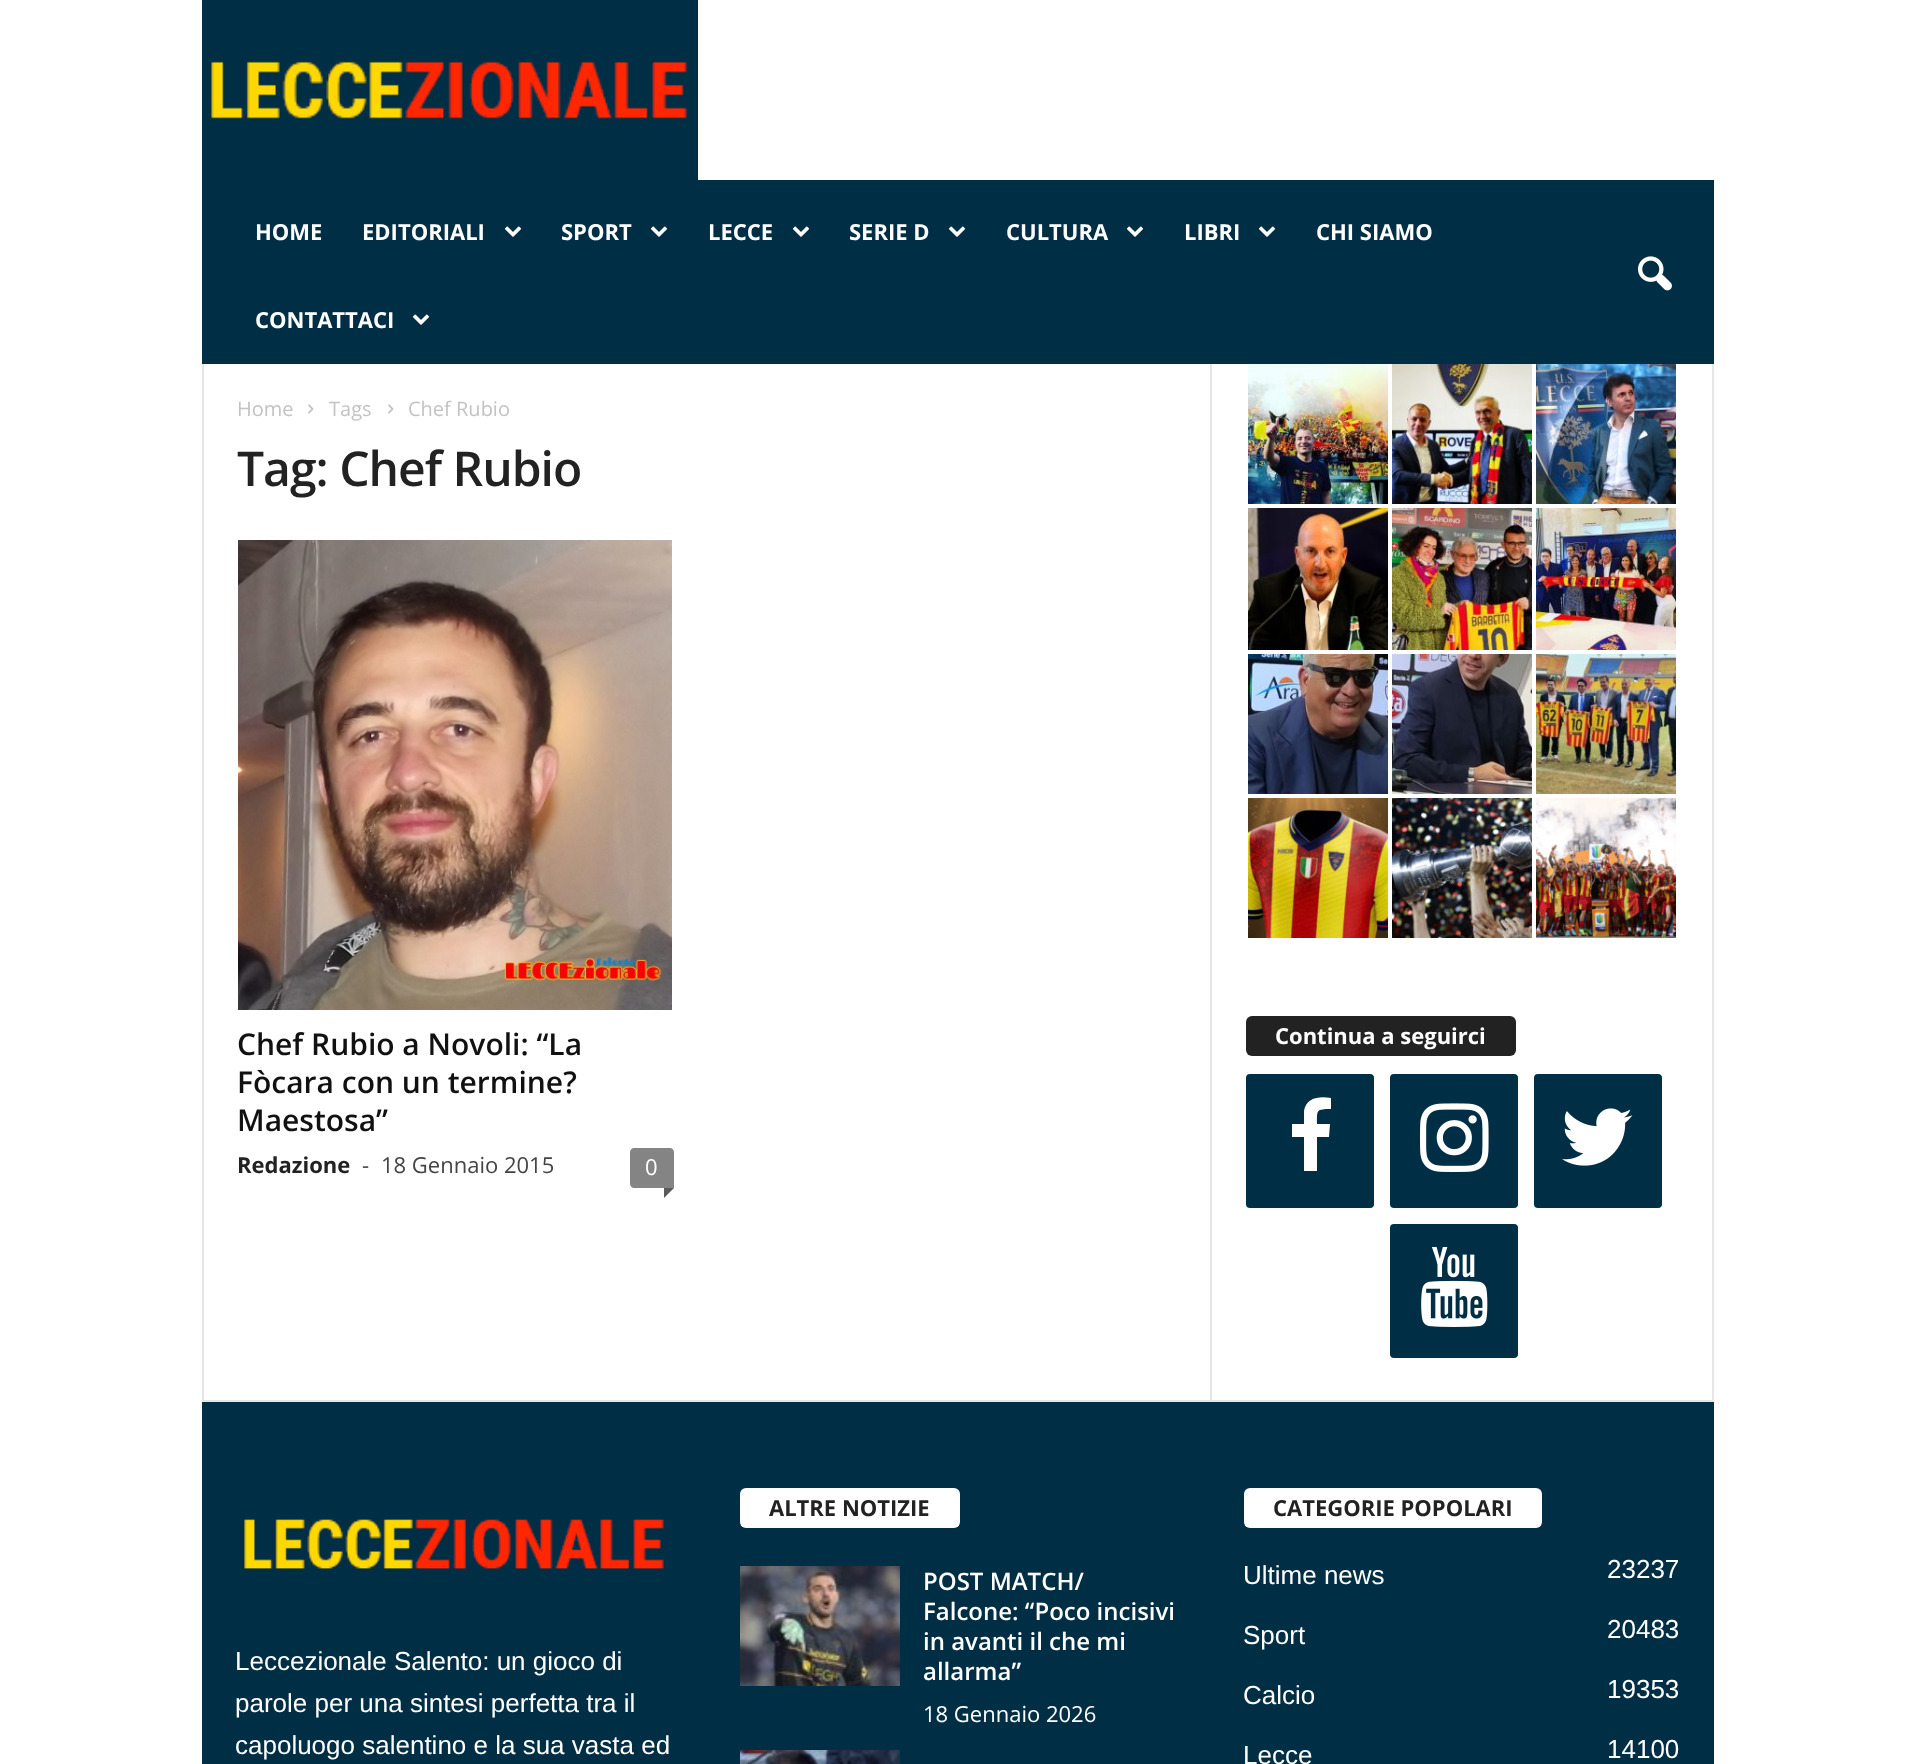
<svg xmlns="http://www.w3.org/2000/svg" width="1914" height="1764">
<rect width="100%" height="100%" fill="#fff"/>
<rect x="202" width="496" height="180" fill="#002e44"/>
<image x="211" y="61" width="477" height="58" href="media/1.png"/>
<rect x="202" y="180" width="1512" height="184" fill="#002e44"/>
<text x="255" y="240" style="font-family:Open Sans;font-size:22px;font-weight:bold;fill:#fff">HOME</text>
<text x="362" y="240" style="font-family:Open Sans;font-size:22px;font-weight:bold;fill:#fff">EDITORIALI</text>
<image x="504" y="226" width="18" height="11" href="media/2.png"/>
<text x="561" y="240" style="font-family:Open Sans;font-size:22px;font-weight:bold;fill:#fff">SPORT</text>
<image x="650" y="226" width="18" height="11" href="media/2.png"/>
<text x="708" y="240" style="font-family:Open Sans;font-size:22px;font-weight:bold;fill:#fff">LECCE</text>
<image x="792" y="226" width="18" height="11" href="media/2.png"/>
<text x="849" y="240" style="font-family:Open Sans;font-size:22px;font-weight:bold;fill:#fff">SERIE D</text>
<image x="948" y="226" width="18" height="11" href="media/2.png"/>
<text x="1006" y="240" style="font-family:Open Sans;font-size:22px;font-weight:bold;fill:#fff">CULTURA</text>
<image x="1126" y="226" width="18" height="11" href="media/2.png"/>
<text x="1184" y="240" style="font-family:Open Sans;font-size:22px;font-weight:bold;fill:#fff">LIBRI</text>
<image x="1258" y="226" width="18" height="11" href="media/2.png"/>
<text x="1316" y="240" style="font-family:Open Sans;font-size:22px;font-weight:bold;fill:#fff">CHI SIAMO</text>
<text x="255" y="328" style="font-family:Open Sans;font-size:22px;font-weight:bold;fill:#fff">CONTATTACI</text>
<image x="412" y="314" width="18" height="11" href="media/2.png"/>
<image x="1638" y="256" width="34" height="35" href="media/3.png"/>
<rect x="202" y="1400" width="1512" height="2" fill="#e6e6e6"/>
<rect x="202" y="364" width="2" height="1036" fill="#e6e6e6"/>
<text x="237" y="416" style="font-family:Open Sans;font-size:20px;fill:#c3c3c3">Home</text>
<image x="308" y="404" width="6" height="10" href="media/4.png"/>
<text x="329" y="416" style="font-family:Open Sans;font-size:20px;fill:#c3c3c3">Tags</text>
<image x="388" y="404" width="6" height="10" href="media/4.png"/>
<text x="408" y="416" style="font-family:Open Sans;font-size:20px;fill:#c3c3c3">Chef Rubio</text>
<text x="237" y="486" style="font-family:Open Sans;font-size:48px;font-weight:600;letter-spacing:-1px;fill:#222">Tag: Chef Rubio</text>
<image x="238" y="540" width="434" height="470" href="media/5.png"/>
<text x="237" y="1055" style="font-family:Open Sans;font-size:30px;font-weight:600;fill:#111">Chef Rubio a Novoli: “La</text>
<text x="237" y="1093" style="font-family:Open Sans;font-size:30px;font-weight:600;fill:#111">Fòcara con un termine?</text>
<text x="237" y="1131" style="font-family:Open Sans;font-size:30px;font-weight:600;fill:#111">Maestosa”</text>
<text x="237" y="1173" style="font-family:Open Sans;font-size:22px;font-weight:bold;fill:#222">Redazione</text>
<text x="362" y="1173" style="font-family:Open Sans;font-size:22px;fill:#444">-</text>
<text x="381" y="1173" style="font-family:Open Sans;font-size:22px;fill:#444">18 Gennaio 2015</text>
<path d="M634 1148h36c2 0 4 2 4 4v36h-40c-2 0-4-2-4-4v-32c0-2 2-4 4-4z" fill="#848484"/>
<text x="645" y="1175" style="font-family:Open Sans;font-size:22px;fill:#fff">0</text>
<path d="M664 1188h10l-10 10z" fill="#5b5b5b"/>
<rect x="1210" y="364" width="2" height="1036" fill="#e6e6e6"/>
<image x="1248" y="364" width="140" height="140" href="media/6.png"/>
<image x="1392" y="364" width="140" height="140" href="media/7.png"/>
<image x="1536" y="364" width="140" height="140" href="media/8.png"/>
<image x="1248" y="508" width="140" height="142" href="media/9.png"/>
<image x="1392" y="508" width="140" height="142" href="media/10.png"/>
<image x="1536" y="508" width="140" height="142" href="media/11.png"/>
<image x="1248" y="654" width="140" height="140" href="media/12.png"/>
<image x="1392" y="654" width="140" height="140" href="media/13.png"/>
<image x="1536" y="654" width="140" height="140" href="media/14.png"/>
<image x="1248" y="798" width="140" height="140" href="media/15.png"/>
<image x="1392" y="798" width="140" height="140" href="media/16.png"/>
<image x="1536" y="798" width="140" height="140" href="media/17.png"/>
<rect x="1246" y="1016" width="270" height="40" rx="6" fill="#222"/>
<text x="1275" y="1044" style="font-family:Open Sans;font-size:22px;font-weight:bold;fill:#fff">Continua a seguirci</text>
<rect x="1246" y="1074" width="128" height="134" rx="4" fill="#002e44"/>
<path d="M1331 1098v11c-15 0-14 1-14 15h13l-1 13h-12v34h-13v-34h-12v-13h12v-13c2-14 16-15 27-13z" fill="#fff"/>
<rect x="1390" y="1074" width="128" height="134" rx="4" fill="#002e44"/>
<image x="1420" y="1103" width="69" height="69" href="media/18.png"/>
<rect x="1534" y="1074" width="128" height="134" rx="4" fill="#002e44"/>
<image x="1562" y="1108" width="71" height="58" href="media/19.png"/>
<rect x="1390" y="1224" width="128" height="134" rx="4" fill="#002e44"/>
<image x="1421" y="1247" width="67" height="80" href="media/20.png"/>
<rect x="1712" y="364" width="2" height="1036" fill="#e6e6e6"/>
<rect x="202" y="1402" width="1512" height="362" fill="#002e44"/>
<image x="244" y="1519" width="421" height="50" href="media/21.png"/>
<text x="235" y="1670" style="font-family:Liberation Sans;font-size:26px;fill:#fff">Leccezionale Salento: un gioco di</text>
<text x="235" y="1712" style="font-family:Liberation Sans;font-size:26px;fill:#fff">parole per una sintesi perfetta tra il</text>
<text x="235" y="1754" style="font-family:Liberation Sans;font-size:26px;fill:#fff">capoluogo salentino e la sua vasta ed</text>
<rect x="740" y="1488" width="220" height="40" rx="6" fill="#fff"/>
<text x="769" y="1516" style="font-family:Open Sans;font-size:22px;font-weight:bold;fill:#222">ALTRE NOTIZIE</text>
<image x="740" y="1566" width="160" height="120" href="media/22.png"/>
<text x="923" y="1590" style="font-family:Open Sans;font-size:24px;font-weight:600;fill:#fff">POST MATCH/</text>
<text x="923" y="1620" style="font-family:Open Sans;font-size:24px;font-weight:600;fill:#fff">Falcone: “Poco incisivi</text>
<text x="923" y="1650" style="font-family:Open Sans;font-size:24px;font-weight:600;fill:#fff">in avanti il che mi</text>
<text x="923" y="1680" style="font-family:Open Sans;font-size:24px;font-weight:600;fill:#fff">allarma”</text>
<text x="923" y="1722" style="font-family:Open Sans;font-size:22px;fill:#fff">18 Gennaio 2026</text>
<image x="740" y="1750" width="160" height="14" href="media/23.png"/>
<rect x="1244" y="1488" width="298" height="40" rx="6" fill="#fff"/>
<text x="1273" y="1516" style="font-family:Open Sans;font-size:22px;font-weight:bold;fill:#222">CATEGORIE POPOLARI</text>
<text x="1243" y="1584" style="font-family:Liberation Sans;font-size:26px;fill:#fff">Ultime news</text>
<text x="1607" y="1578" style="font-family:Liberation Sans;font-size:26px;fill:#fff">23237</text>
<text x="1243" y="1644" style="font-family:Liberation Sans;font-size:26px;fill:#fff">Sport</text>
<text x="1607" y="1638" style="font-family:Liberation Sans;font-size:26px;fill:#fff">20483</text>
<text x="1243" y="1704" style="font-family:Liberation Sans;font-size:26px;fill:#fff">Calcio</text>
<text x="1607" y="1698" style="font-family:Liberation Sans;font-size:26px;fill:#fff">19353</text>
<text x="1243" y="1764" style="font-family:Liberation Sans;font-size:26px;fill:#fff">Lecce</text>
<text x="1607" y="1758" style="font-family:Liberation Sans;font-size:26px;fill:#fff">14100</text>
</svg>
